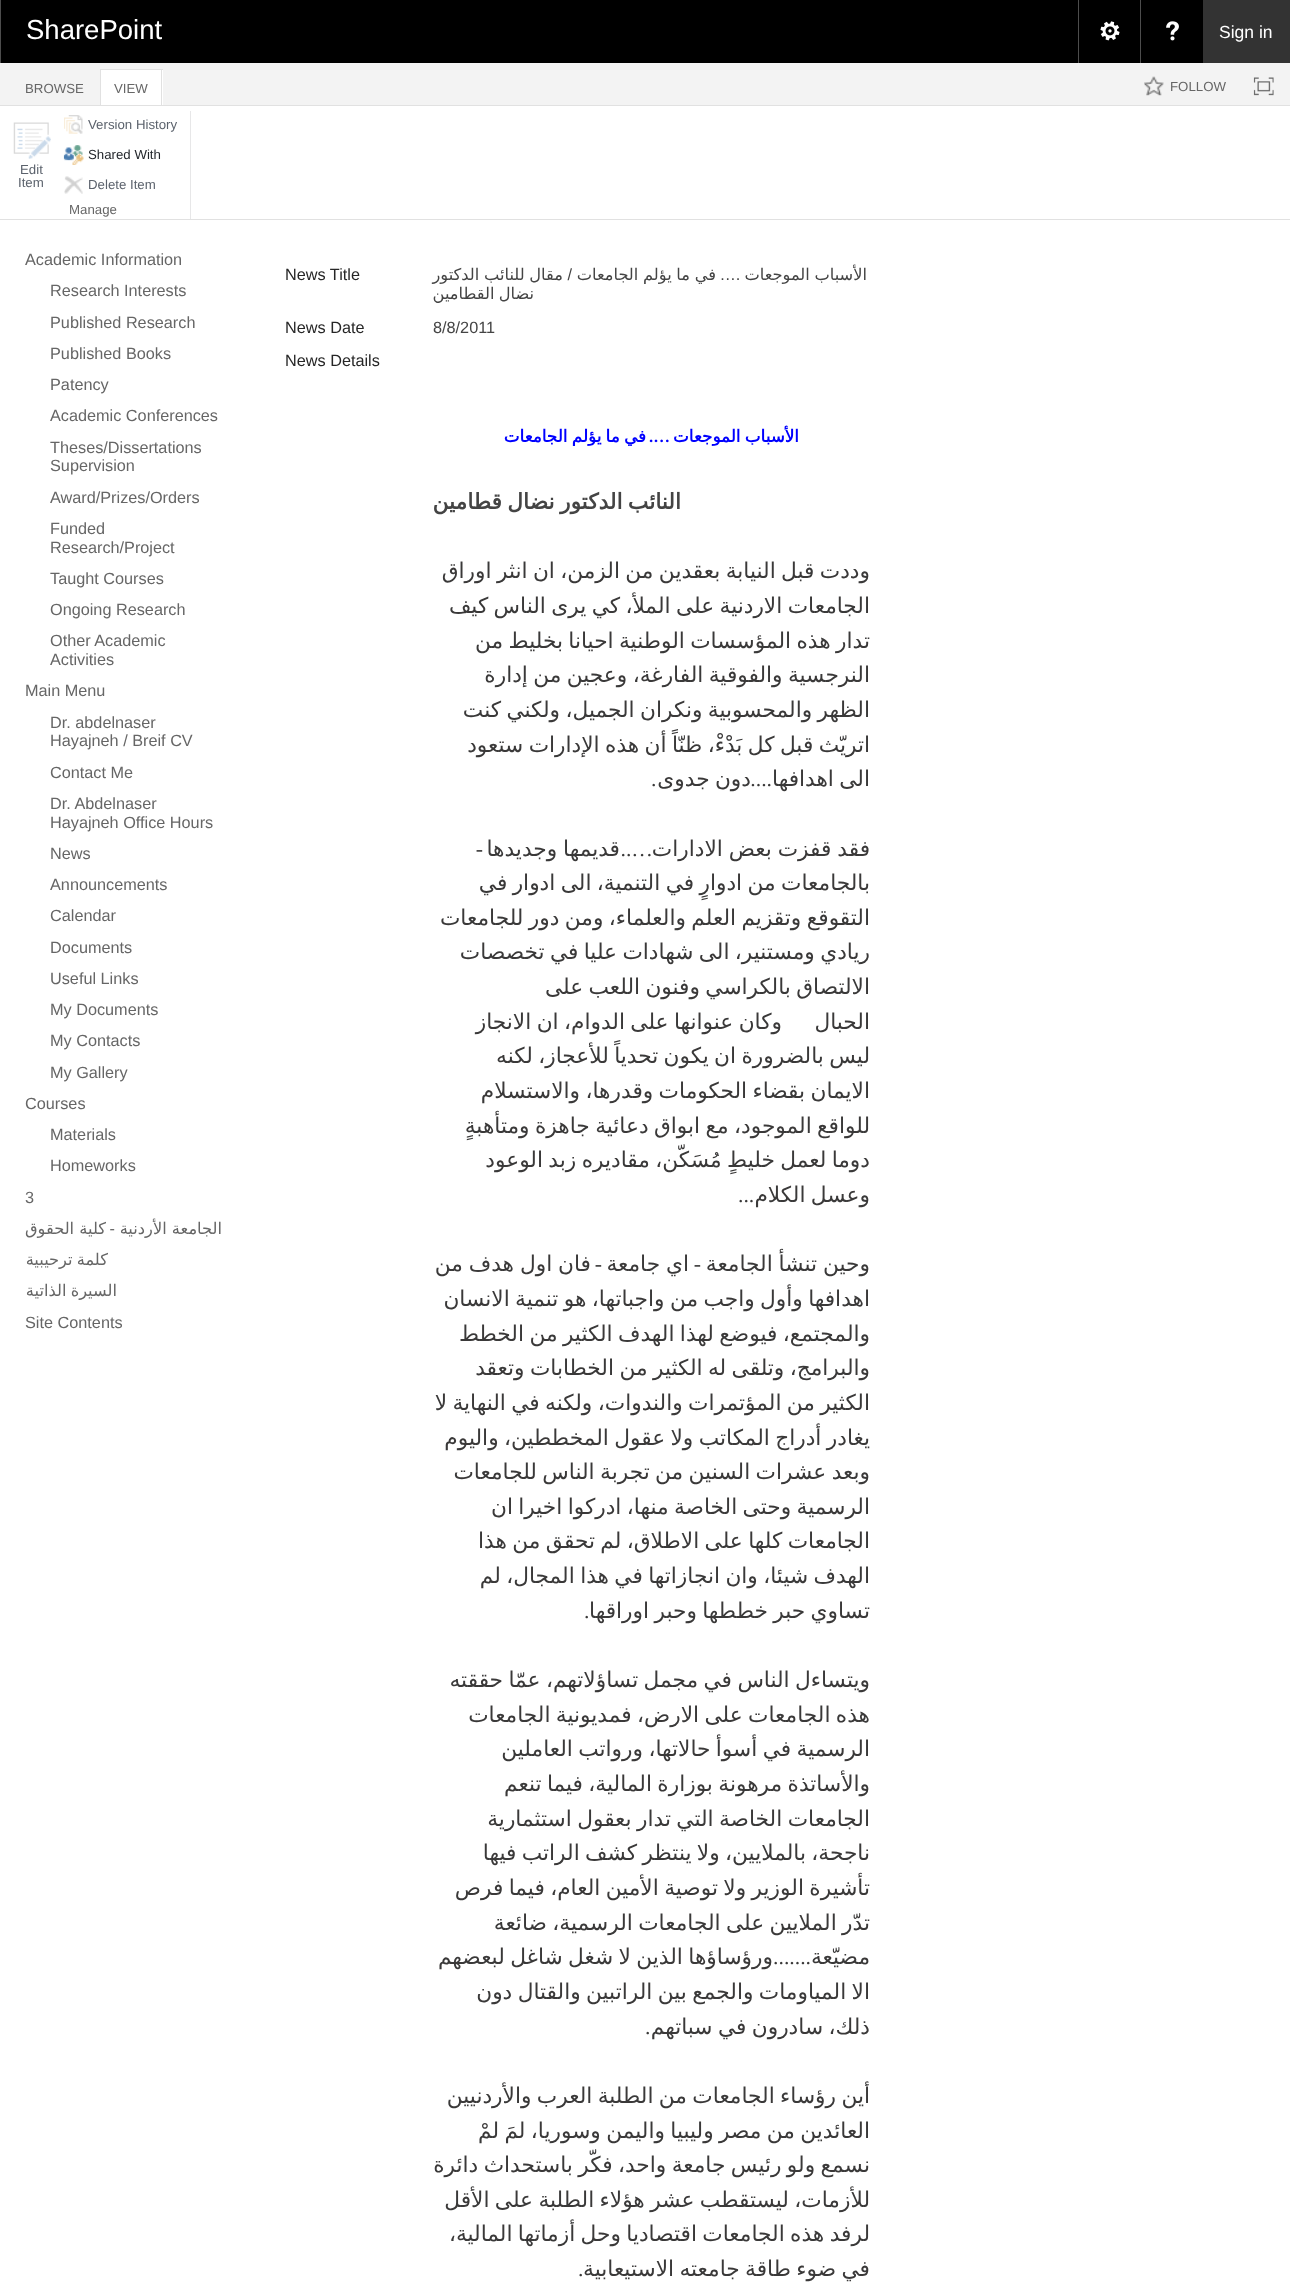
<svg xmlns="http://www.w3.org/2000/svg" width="1290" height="2284">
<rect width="100%" height="100%" fill="#fff"/>
<rect x="1" width="1202" height="63" fill="#000"/>
<rect x="1203" width="87" height="63" fill="#333"/>
<text x="1219" y="38" style="font-family:Liberation Sans;font-size:17.5px;fill:#fff">Sign in</text>
<rect x="1140" width="1" height="63" fill="#4d4d4d"/>
<image x="1166" y="21" width="13" height="20" href="media/1.png"/>
<rect x="1078" width="1" height="63" fill="#4d4d4d"/>
<image x="1100" y="21" width="20" height="20" href="media/2.png"/>
<rect width="1" height="63" fill="#4d4d4d"/>
<text x="26" y="39" style="font-family:Liberation Sans;font-size:27.5px;fill:#fff">SharePoint</text>
<rect y="63" width="1290" height="42" fill="#f3f3f3"/>
<rect y="105" width="1290" height="1" fill="#e1e1e1"/>
<image x="1253" y="77" width="21" height="19" href="media/3.png"/>
<text x="1170" y="91" style="font-family:Liberation Sans;font-size:13.25px;fill:#666">FOLLOW</text>
<image x="1144" y="76" width="20" height="20" href="media/4.png"/>
<rect x="101" y="70" width="62" height="35" fill="#fff"/>
<rect x="100" y="69" width="63" height="1" fill="#e1e1e1"/>
<rect x="161" y="69" width="1" height="36" fill="#e1e1e1"/>
<rect x="100" y="69" width="1" height="36" fill="#e1e1e1"/>
<text x="114" y="93" style="font-family:Liberation Sans;font-size:13.25px;fill:#666">VIEW</text>
<text x="25" y="93" style="font-family:Liberation Sans;font-size:13.25px;fill:#666">BROWSE</text>
<rect y="219" width="1290" height="1" fill="#e1e1e1"/>
<rect x="190" y="111" width="1" height="108" fill="#e7e7e8"/>
<text x="88" y="129" style="font-family:Liberation Sans;font-size:13.25px;fill:#5b626c">Version History</text>
<image x="64" y="115" width="19" height="19" href="media/5.png"/>
<text x="88" y="159" style="font-family:Liberation Sans;font-size:13.25px;fill:#23272c">Shared With</text>
<image x="63" y="145" width="21" height="20" href="media/6.png"/>
<text x="88" y="189" style="font-family:Liberation Sans;font-size:13.25px;fill:#5b626c">Delete Item</text>
<image x="64" y="176" width="19" height="18" href="media/7.png"/>
<image x="13" y="122" width="38" height="37" href="media/8.png"/>
<text x="20" y="174" style="font-family:Liberation Sans;font-size:13.25px;fill:#5b626c">Edit</text>
<text x="18" y="187" style="font-family:Liberation Sans;font-size:13.25px;fill:#5b626c">Item</text>
<text x="69" y="214" style="font-family:Liberation Sans;font-size:13.25px;fill:#666">Manage</text>
<text x="867" y="280" word-spacing="-0.5" style="font-family:DejaVu Sans;font-size:16.25px;direction:rtl;fill:#444">الأسباب الموجعات</text>
<text x="741" y="280" style="font-family:Liberation Sans;font-size:16.25px;direction:rtl;fill:#444">….</text>
<text x="716" y="280" word-spacing="-0.5" style="font-family:DejaVu Sans;font-size:16.25px;direction:rtl;fill:#444">في ما يؤلم الجامعات</text>
<text x="572" y="280" style="font-family:Liberation Sans;font-size:16.25px;direction:rtl;fill:#444">/</text>
<text x="563" y="280" word-spacing="-0.5" style="font-family:DejaVu Sans;font-size:16.25px;direction:rtl;fill:#444">مقال للنائب الدكتور</text>
<text x="534" y="299" word-spacing="-1" style="font-family:DejaVu Sans;font-size:16.25px;direction:rtl;fill:#444">نضال القطامين</text>
<text x="285" y="280" style="font-family:Liberation Sans;font-size:16.25px;fill:#262626">News Title</text>
<text x="433" y="333" style="font-family:Liberation Sans;font-size:16.25px;fill:#444">8/8/2011</text>
<text x="285" y="333" style="font-family:Liberation Sans;font-size:16.25px;fill:#262626">News Date</text>
<text x="285" y="366" style="font-family:Liberation Sans;font-size:16.25px;fill:#262626">News Details</text>
<text x="799" y="442" word-spacing="-1" style="font-family:DejaVu Sans;font-size:16.75px;font-weight:bold;direction:rtl;fill:#00f">الأسباب الموجعات</text>
<text x="670" y="442" style="font-family:Liberation Serif;font-size:16.75px;font-weight:bold;direction:rtl;fill:#00f">….</text>
<text x="646" y="442" word-spacing="-1" style="font-family:DejaVu Sans;font-size:16.75px;font-weight:bold;direction:rtl;fill:#00f">في ما يؤلم الجامعات</text>
<text x="681" y="509" word-spacing="-1.5" style="font-family:DejaVu Sans;font-size:21.7px;font-weight:bold;direction:rtl;fill:#444">النائب الدكتور نضال قطامين</text>
<text x="870" y="578" word-spacing="-1.5" style="font-family:DejaVu Sans;font-size:21.7px;direction:rtl;fill:#3a3939">وددت قبل النيابة بعقدين من الزمن، ان انثر اوراق</text>
<text x="870" y="613" word-spacing="-1.5" style="font-family:DejaVu Sans;font-size:21.7px;direction:rtl;fill:#3a3939">الجامعات الاردنية على الملأ، كي يرى الناس كيف</text>
<text x="870" y="648" word-spacing="-1.5" style="font-family:DejaVu Sans;font-size:21.7px;direction:rtl;fill:#3a3939">تدار هذه المؤسسات الوطنية احيانا بخليط من</text>
<text x="870" y="682" word-spacing="-1.5" style="font-family:DejaVu Sans;font-size:21.7px;direction:rtl;fill:#3a3939">النرجسية والفوقية الفارغة، وعجين من إدارة</text>
<text x="870" y="717" word-spacing="-1.5" style="font-family:DejaVu Sans;font-size:21.7px;direction:rtl;fill:#3a3939">الظهر والمحسوبية ونكران الجميل، ولكني كنت</text>
<text x="870" y="752" word-spacing="-1.5" style="font-family:DejaVu Sans;font-size:21.7px;direction:rtl;fill:#3a3939">اتريّث قبل كل بَدْءْ، ظنّاً أن هذه الإدارات ستعود</text>
<text x="870" y="786" word-spacing="-1.5" style="font-family:DejaVu Sans;font-size:21.7px;direction:rtl;fill:#3a3939">الى اهدافها</text>
<text x="772" y="786" style="font-family:Liberation Serif;font-size:21.7px;direction:rtl;fill:#3a3939">....</text>
<text x="751" y="786" word-spacing="-1.5" style="font-family:DejaVu Sans;font-size:21.7px;direction:rtl;fill:#3a3939">دون جدوى</text>
<text x="651" y="786" style="font-family:Liberation Serif;font-size:21.7px;fill:#3a3939">.</text>
<text x="870" y="856" word-spacing="-1" style="font-family:DejaVu Sans;font-size:21.7px;direction:rtl;fill:#3a3939">فقد قفزت بعض الادارات</text>
<text x="620" y="856" word-spacing="-1" style="font-family:DejaVu Sans;font-size:21.7px;direction:rtl;fill:#3a3939">قديمها وجديدها</text>
<text x="483" y="856" style="font-family:Liberation Serif;font-size:21.7px;direction:rtl;fill:#3a3939">-</text>
<text x="653" y="856" style="font-family:Liberation Serif;font-size:21.7px;direction:rtl;fill:#3a3939">…..</text>
<text x="870" y="890" word-spacing="-1.5" style="font-family:DejaVu Sans;font-size:21.7px;direction:rtl;fill:#3a3939">بالجامعات من ادوارٍ في التنمية، الى ادوار في</text>
<text x="870" y="925" word-spacing="-1.5" style="font-family:DejaVu Sans;font-size:21.7px;direction:rtl;fill:#3a3939">التقوقع وتقزيم العلم والعلماء، ومن دور للجامعات</text>
<text x="870" y="959" word-spacing="-1.5" style="font-family:DejaVu Sans;font-size:21.7px;direction:rtl;fill:#3a3939">ريادي ومستنير، الى شهادات عليا في تخصصات</text>
<text x="870" y="994" word-spacing="-1.5" style="font-family:DejaVu Sans;font-size:21.7px;direction:rtl;fill:#3a3939">الالتصاق بالكراسي وفنون اللعب على</text>
<text x="870" y="1029" style="font-family:DejaVu Sans;font-size:21.7px;direction:rtl;fill:#3a3939">الحبال</text>
<text x="782" y="1029" word-spacing="-1.5" style="font-family:DejaVu Sans;font-size:21.7px;direction:rtl;fill:#3a3939">وكان عنوانها على الدوام، ان الانجاز</text>
<text x="870" y="1063" word-spacing="-1.5" style="font-family:DejaVu Sans;font-size:21.7px;direction:rtl;fill:#3a3939">ليس بالضرورة ان يكون تحدياً للأعجاز، لكنه</text>
<text x="870" y="1098" word-spacing="-1.5" style="font-family:DejaVu Sans;font-size:21.7px;direction:rtl;fill:#3a3939">الايمان بقضاء الحكومات وقدرها، والاستسلام</text>
<text x="870" y="1133" word-spacing="-1.5" style="font-family:DejaVu Sans;font-size:21.7px;direction:rtl;fill:#3a3939">للواقع الموجود، مع ابواق دعائية جاهزة ومتأهبةٍ</text>
<text x="870" y="1167" word-spacing="-1.5" style="font-family:DejaVu Sans;font-size:21.7px;direction:rtl;fill:#3a3939">دوما لعمل خليطٍ مُسَكّن، مقاديره زبد الوعود</text>
<text x="870" y="1202" word-spacing="-1.5" style="font-family:DejaVu Sans;font-size:21.7px;direction:rtl;fill:#3a3939">وعسل الكلام</text>
<text x="738" y="1202" style="font-family:Liberation Serif;font-size:21.7px;fill:#3a3939">...</text>
<text x="870" y="1271" word-spacing="-1" style="font-family:DejaVu Sans;font-size:21.7px;direction:rtl;fill:#3a3939">وحين تنشأ الجامعة</text>
<text x="701" y="1271" style="font-family:Liberation Serif;font-size:21.7px;direction:rtl;fill:#3a3939">-</text>
<text x="689" y="1271" word-spacing="-1" style="font-family:DejaVu Sans;font-size:21.7px;direction:rtl;fill:#3a3939">اي جامعة</text>
<text x="602" y="1271" style="font-family:Liberation Serif;font-size:21.7px;direction:rtl;fill:#3a3939">-</text>
<text x="591" y="1271" word-spacing="-1" style="font-family:DejaVu Sans;font-size:21.7px;direction:rtl;fill:#3a3939">فان اول هدف من</text>
<text x="870" y="1306" word-spacing="-1.5" style="font-family:DejaVu Sans;font-size:21.7px;direction:rtl;fill:#3a3939">اهدافها وأول واجب من واجباتها، هو تنمية الانسان</text>
<text x="870" y="1341" word-spacing="-1.5" style="font-family:DejaVu Sans;font-size:21.7px;direction:rtl;fill:#3a3939">والمجتمع، فيوضع لهذا الهدف الكثير من الخطط</text>
<text x="870" y="1375" word-spacing="-1.5" style="font-family:DejaVu Sans;font-size:21.7px;direction:rtl;fill:#3a3939">والبرامج، وتلقى له الكثير من الخطابات وتعقد</text>
<text x="870" y="1410" word-spacing="-1.5" style="font-family:DejaVu Sans;font-size:21.7px;direction:rtl;fill:#3a3939">الكثير من المؤتمرات والندوات، ولكنه في النهاية لا</text>
<text x="870" y="1445" word-spacing="-1.5" style="font-family:DejaVu Sans;font-size:21.7px;direction:rtl;fill:#3a3939">يغادر أدراج المكاتب ولا عقول المخططين، واليوم</text>
<text x="870" y="1479" word-spacing="-1.5" style="font-family:DejaVu Sans;font-size:21.7px;direction:rtl;fill:#3a3939">وبعد عشرات السنين من تجربة الناس للجامعات</text>
<text x="870" y="1514" word-spacing="-1.5" style="font-family:DejaVu Sans;font-size:21.7px;direction:rtl;fill:#3a3939">الرسمية وحتى الخاصة منها، ادركوا اخيرا ان</text>
<text x="870" y="1548" word-spacing="-1.5" style="font-family:DejaVu Sans;font-size:21.7px;direction:rtl;fill:#3a3939">الجامعات كلها على الاطلاق، لم تحقق من هذا</text>
<text x="870" y="1583" word-spacing="-1.5" style="font-family:DejaVu Sans;font-size:21.7px;direction:rtl;fill:#3a3939">الهدف شيئا، وان انجازاتها في هذا المجال، لم</text>
<text x="870" y="1618" word-spacing="-1.5" style="font-family:DejaVu Sans;font-size:21.7px;direction:rtl;fill:#3a3939">تساوي حبر خططها وحبر اوراقها</text>
<text x="584" y="1618" style="font-family:Liberation Serif;font-size:21.7px;fill:#3a3939">.</text>
<text x="870" y="1687" word-spacing="-1.5" style="font-family:DejaVu Sans;font-size:21.7px;direction:rtl;fill:#3a3939">ويتساءل الناس في مجمل تساؤلاتهم، عمّا حققته</text>
<text x="870" y="1722" word-spacing="-1.5" style="font-family:DejaVu Sans;font-size:21.7px;direction:rtl;fill:#3a3939">هذه الجامعات على الارض، فمديونية الجامعات</text>
<text x="870" y="1756" word-spacing="-1.5" style="font-family:DejaVu Sans;font-size:21.7px;direction:rtl;fill:#3a3939">الرسمية في أسوأ حالاتها، ورواتب العاملين</text>
<text x="870" y="1791" word-spacing="-1.5" style="font-family:DejaVu Sans;font-size:21.7px;direction:rtl;fill:#3a3939">والأساتذة مرهونة بوزارة المالية، فيما تنعم</text>
<text x="870" y="1826" word-spacing="-1.5" style="font-family:DejaVu Sans;font-size:21.7px;direction:rtl;fill:#3a3939">الجامعات الخاصة التي تدار بعقول استثمارية</text>
<text x="870" y="1860" word-spacing="-1.5" style="font-family:DejaVu Sans;font-size:21.7px;direction:rtl;fill:#3a3939">ناجحة، بالملايين، ولا ينتظر كشف الراتب فيها</text>
<text x="870" y="1895" word-spacing="-1.5" style="font-family:DejaVu Sans;font-size:21.7px;direction:rtl;fill:#3a3939">تأشيرة الوزير ولا توصية الأمين العام، فيما فرص</text>
<text x="870" y="1930" word-spacing="-1.5" style="font-family:DejaVu Sans;font-size:21.7px;direction:rtl;fill:#3a3939">تدّر الملايين على الجامعات الرسمية، ضائعة</text>
<text x="870" y="1964" style="font-family:DejaVu Sans;font-size:21.7px;direction:rtl;fill:#3a3939">مضيّعة</text>
<text x="773" y="1964" word-spacing="-1.5" style="font-family:DejaVu Sans;font-size:21.7px;direction:rtl;fill:#3a3939">ورؤساؤها الذين لا شغل شاغل لبعضهم</text>
<text x="811" y="1964" style="font-family:Liberation Serif;font-size:21.7px;direction:rtl;fill:#3a3939">.......</text>
<text x="870" y="1999" word-spacing="-1.5" style="font-family:DejaVu Sans;font-size:21.7px;direction:rtl;fill:#3a3939">الا المياومات والجمع بين الراتبين والقتال دون</text>
<text x="870" y="2034" word-spacing="-1.5" style="font-family:DejaVu Sans;font-size:21.7px;direction:rtl;fill:#3a3939">ذلك، سادرون في سباتهم</text>
<text x="645" y="2034" style="font-family:Liberation Serif;font-size:21.7px;fill:#3a3939">.</text>
<text x="870" y="2103" word-spacing="-1.5" style="font-family:DejaVu Sans;font-size:21.7px;direction:rtl;fill:#3a3939">أين رؤساء الجامعات من الطلبة العرب والأردنيين</text>
<text x="870" y="2138" word-spacing="-1.5" style="font-family:DejaVu Sans;font-size:21.7px;direction:rtl;fill:#3a3939">العائدين من مصر وليبيا واليمن وسوريا، لمَ لمْ</text>
<text x="870" y="2172" word-spacing="-1.5" style="font-family:DejaVu Sans;font-size:21.7px;direction:rtl;fill:#3a3939">نسمع ولو رئيس جامعة واحد، فكّر باستحداث دائرة</text>
<text x="870" y="2207" word-spacing="-1.5" style="font-family:DejaVu Sans;font-size:21.7px;direction:rtl;fill:#3a3939">للأزمات، ليستقطب عشر هؤلاء الطلبة على الأقل</text>
<text x="870" y="2241" word-spacing="-1.5" style="font-family:DejaVu Sans;font-size:21.7px;direction:rtl;fill:#3a3939">لرفد هذه الجامعات اقتصاديا وحل أزماتها المالية،</text>
<text x="870" y="2276" word-spacing="-1.5" style="font-family:DejaVu Sans;font-size:21.7px;direction:rtl;fill:#3a3939">في ضوء طاقة جامعته الاستيعابية</text>
<text x="578" y="2276" style="font-family:Liberation Serif;font-size:21.7px;fill:#3a3939">.</text>
<text x="25" y="265" style="font-family:Liberation Sans;font-size:16.25px;fill:#666">Academic Information</text>
<text x="50" y="296" style="font-family:Liberation Sans;font-size:16.25px;fill:#666">Research Interests</text>
<text x="50" y="328" style="font-family:Liberation Sans;font-size:16.25px;fill:#666">Published Research</text>
<text x="50" y="359" style="font-family:Liberation Sans;font-size:16.25px;fill:#666">Published Books</text>
<text x="50" y="390" style="font-family:Liberation Sans;font-size:16.25px;fill:#666">Patency</text>
<text x="50" y="421" style="font-family:Liberation Sans;font-size:16.25px;fill:#666">Academic Conferences</text>
<text x="50" y="453" style="font-family:Liberation Sans;font-size:16.25px;fill:#666">Theses/Dissertations</text>
<text x="50" y="471" style="font-family:Liberation Sans;font-size:16.25px;fill:#666">Supervision</text>
<text x="50" y="503" style="font-family:Liberation Sans;font-size:16.25px;fill:#666">Award/Prizes/Orders</text>
<text x="50" y="534" style="font-family:Liberation Sans;font-size:16.25px;fill:#666">Funded</text>
<text x="50" y="553" style="font-family:Liberation Sans;font-size:16.25px;fill:#666">Research/Project</text>
<text x="50" y="584" style="font-family:Liberation Sans;font-size:16.25px;fill:#666">Taught Courses</text>
<text x="50" y="615" style="font-family:Liberation Sans;font-size:16.25px;fill:#666">Ongoing Research</text>
<text x="50" y="646" style="font-family:Liberation Sans;font-size:16.25px;fill:#666">Other Academic</text>
<text x="50" y="665" style="font-family:Liberation Sans;font-size:16.25px;fill:#666">Activities</text>
<text x="25" y="696" style="font-family:Liberation Sans;font-size:16.25px;fill:#666">Main Menu</text>
<text x="50" y="728" style="font-family:Liberation Sans;font-size:16.25px;fill:#666">Dr. abdelnaser</text>
<text x="50" y="746" style="font-family:Liberation Sans;font-size:16.25px;fill:#666">Hayajneh / Breif CV</text>
<text x="50" y="778" style="font-family:Liberation Sans;font-size:16.25px;fill:#666">Contact Me</text>
<text x="50" y="809" style="font-family:Liberation Sans;font-size:16.25px;fill:#666">Dr. Abdelnaser</text>
<text x="50" y="828" style="font-family:Liberation Sans;font-size:16.25px;fill:#666">Hayajneh Office Hours</text>
<text x="50" y="859" style="font-family:Liberation Sans;font-size:16.25px;fill:#666">News</text>
<text x="50" y="890" style="font-family:Liberation Sans;font-size:16.25px;fill:#666">Announcements</text>
<text x="50" y="921" style="font-family:Liberation Sans;font-size:16.25px;fill:#666">Calendar</text>
<text x="50" y="953" style="font-family:Liberation Sans;font-size:16.25px;fill:#666">Documents</text>
<text x="50" y="984" style="font-family:Liberation Sans;font-size:16.25px;fill:#666">Useful Links</text>
<text x="50" y="1015" style="font-family:Liberation Sans;font-size:16.25px;fill:#666">My Documents</text>
<text x="50" y="1046" style="font-family:Liberation Sans;font-size:16.25px;fill:#666">My Contacts</text>
<text x="50" y="1078" style="font-family:Liberation Sans;font-size:16.25px;fill:#666">My Gallery</text>
<text x="25" y="1109" style="font-family:Liberation Sans;font-size:16.25px;fill:#666">Courses</text>
<text x="50" y="1140" style="font-family:Liberation Sans;font-size:16.25px;fill:#666">Materials</text>
<text x="50" y="1171" style="font-family:Liberation Sans;font-size:16.25px;fill:#666">Homeworks</text>
<text x="25" y="1203" style="font-family:Liberation Sans;font-size:16.25px;fill:#666">3</text>
<text x="222" y="1234" style="font-family:DejaVu Sans;font-size:16.25px;direction:rtl;fill:#666">الجامعة الأردنية</text>
<text x="115" y="1234" style="font-family:Liberation Sans;font-size:16.25px;direction:rtl;fill:#666">-</text>
<text x="106" y="1234" style="font-family:DejaVu Sans;font-size:16.25px;direction:rtl;fill:#666">كلية الحقوق</text>
<text x="108" y="1265" word-spacing="-1" style="font-family:DejaVu Sans;font-size:16.25px;direction:rtl;fill:#666">كلمة ترحيبية</text>
<text x="117" y="1296" word-spacing="-1" style="font-family:DejaVu Sans;font-size:16.25px;direction:rtl;fill:#666">السيرة الذاتية</text>
<text x="25" y="1328" style="font-family:Liberation Sans;font-size:16.25px;fill:#666">Site Contents</text>
</svg>
